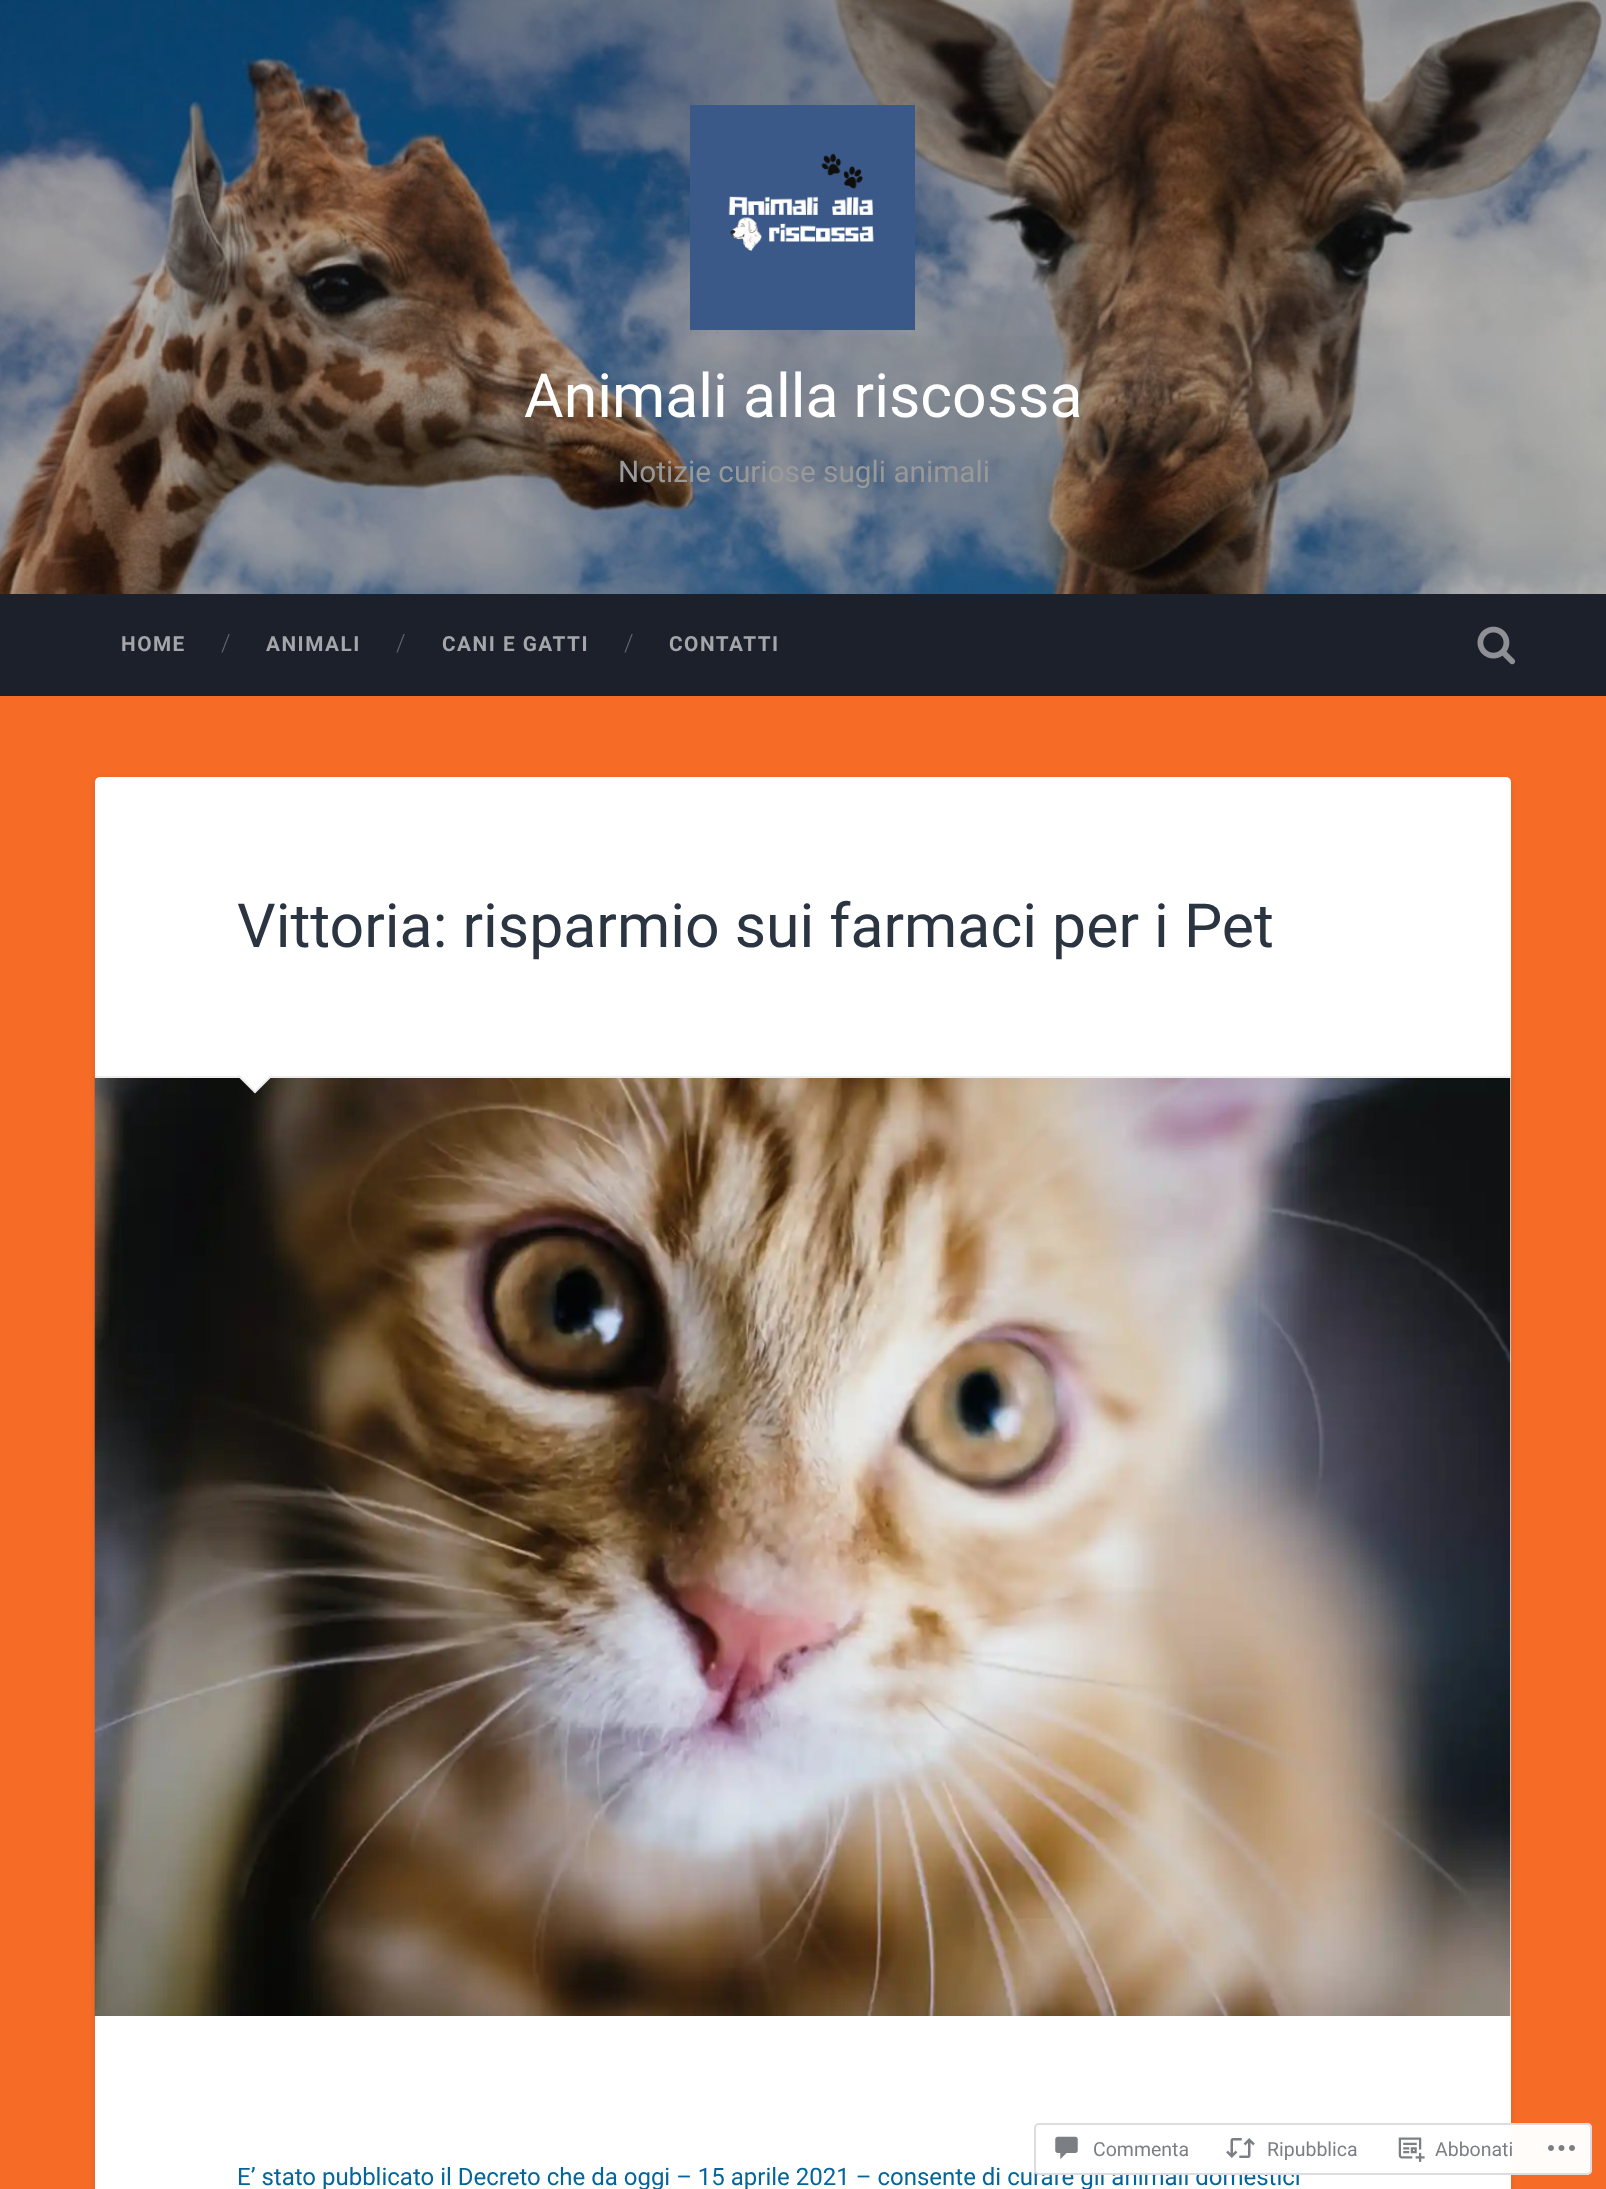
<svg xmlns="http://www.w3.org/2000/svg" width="1606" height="2189">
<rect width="100%" height="100%" fill="#f66c27"/>
<image x="0" y="0" width="1606" height="594" href="media/1.png"/>
<image x="690" y="105" width="225" height="225" href="media/2.png"/>
<text x="524" y="417" style="font-family:Roboto;font-size:60.75px;fill:#fff">Animali alla riscossa</text>
<text x="618" y="482" style="font-family:Roboto;font-size:29.75px;fill:#999">Notizie curiose sugli animali</text>
<rect y="594" width="1606" height="102" fill="#1c202b"/>
<text x="121" y="651" style="font-family:Roboto;font-size:20.75px;font-weight:bold;letter-spacing:1.5px;fill:#a4a6aa">HOME</text>
<text x="221" y="651" style="font-family:Roboto;font-size:24px;font-weight:300;fill:#60636b">/</text>
<text x="266" y="651" style="font-family:Roboto;font-size:20.75px;font-weight:bold;letter-spacing:1.5px;fill:#a4a6aa">ANIMALI</text>
<text x="396" y="651" style="font-family:Roboto;font-size:24px;font-weight:300;fill:#60636b">/</text>
<text x="442" y="651" style="font-family:Roboto;font-size:20.75px;font-weight:bold;letter-spacing:1.5px;fill:#a4a6aa">CANI E GATTI</text>
<text x="624" y="651" style="font-family:Roboto;font-size:24px;font-weight:300;fill:#60636b">/</text>
<text x="669" y="651" style="font-family:Roboto;font-size:20.75px;font-weight:bold;letter-spacing:1.5px;fill:#a4a6aa">CONTATTI</text>
<image x="1477" y="626" width="39" height="39" href="media/3.png"/>
<rect x="95" y="779" width="1416" height="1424" rx="5" fill="#0000001a" filter="blur(3px)"/>
<rect x="95" y="777" width="1416" height="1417" rx="5" fill="#fff"/>
<image x="94" y="1077" width="1417" height="939" href="media/4.png"/>
<rect x="95" y="1076" width="1416" height="2" fill="#eee"/>
<text x="237" y="947" style="font-family:Roboto;font-size:60.75px;fill:#2b3542">Vittoria: risparmio sui farmaci per i Pet</text>
<path d="M237 1075.5h36l-18 18z" fill="#eee"/>
<path d="M238.5 1074h33l-16.5 16.5z" fill="#fff"/>
<text x="237" y="2185" style="font-family:Roboto;font-size:24px;fill:#04659c">E’ stato pubblicato il Decreto che da oggi – 15 aprile 2021 – consente di curare gli animali domestici</text>
<rect x="1034" y="2123" width="558" height="52" rx="5" fill="#fffffffa"/>
<rect x="1035" y="2124" width="556" height="50" rx="4" fill="none" stroke="#dcdcdefa" stroke-width="2"/>
<image x="1055" y="2136" width="23" height="24" href="media/5.png"/>
<text x="1093" y="2156" style="font-family:Roboto;font-size:19.5px;fill:#7b7f85">Commenta</text>
<image x="1226" y="2138" width="29" height="20" href="media/6.png"/>
<text x="1267" y="2156" style="font-family:Roboto;font-size:19.5px;fill:#7b7f85">Ripubblica</text>
<image x="1398" y="2137" width="27" height="25" href="media/7.png"/>
<text x="1435" y="2156" style="font-family:Roboto;font-size:19.5px;fill:#7b7f85">Abbonati</text>
<image x="1548" y="2145" width="27" height="6" href="media/8.png"/>
</svg>
